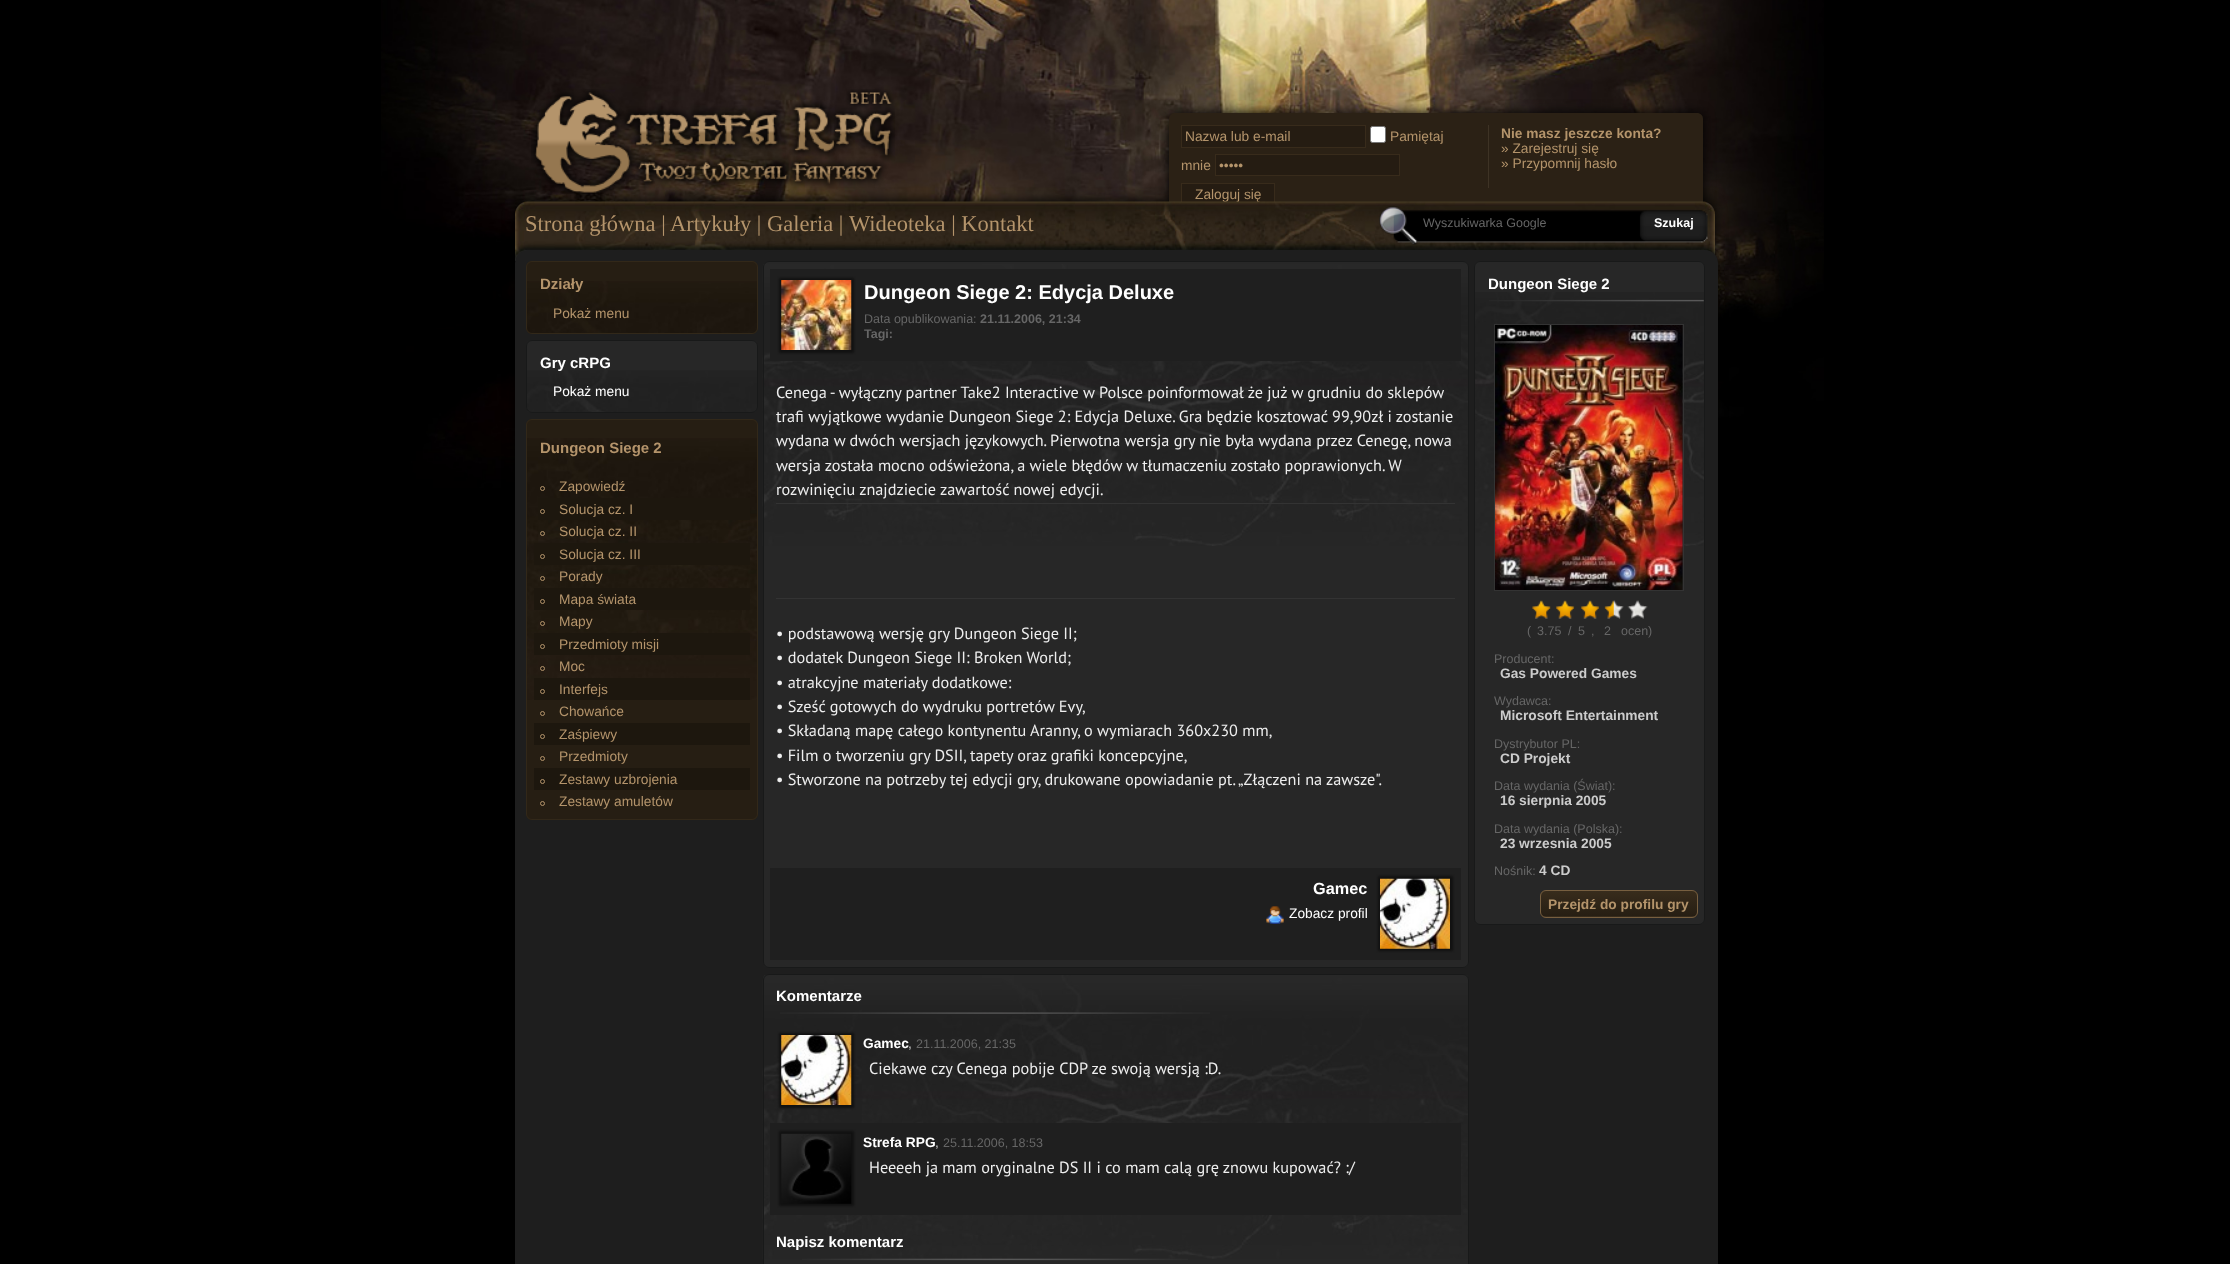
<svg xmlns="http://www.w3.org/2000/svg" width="2230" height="1264">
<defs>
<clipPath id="clip1"><rect x="1540" y="890" width="158" height="28" rx="6"/></clipPath>
<linearGradient id="g1" gradientUnits="userSpaceOnUse" x1="1619" y1="891" x2="1619" y2="916"><stop offset="0" stop-color="#382c1c"/><stop offset="1" stop-color="#261e13"/></linearGradient>
<linearGradient id="g2" gradientUnits="userSpaceOnUse" x1="1619" y1="916" x2="1619" y2="941"><stop offset="0" stop-color="#382c1c"/><stop offset="1" stop-color="#261e13"/></linearGradient>
</defs>
<rect width="100%" height="100%" fill="#000"/>
<image x="381" y="0" width="1443" height="489" href="media/1.png"/>
<rect x="515" y="201" width="1200" height="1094" rx="13" fill="#000" filter="blur(6px)"/>
<image x="531" y="89" width="364" height="109" href="media/2.png"/>
<rect x="1169" y="113" width="534" height="100" rx="6" fill="#000" filter="blur(6px)"/>
<path d="M1175 113h522c3.5 0 6 2.5 6 6v94h-534v-94c0-3.5 2.5-6 6-6z" fill="#2b2115"/>
<rect x="1181.5" y="125.5" width="184" height="22" fill="#251c12" stroke="#382b1b"/>
<text x="1185" y="141" style="font-family:Liberation Sans;font-size:13.75px;fill:#b4946b">Nazwa lub e-mail</text>
<rect x="1370.5" y="126.5" width="15" height="16" rx="2" fill="#fff" stroke="#767676"/>
<text x="1390" y="141" style="font-family:Liberation Sans;font-size:13.75px;fill:#b4946b">Pamiętaj</text>
<text x="1181" y="170" style="font-family:Liberation Sans;font-size:13.75px;fill:#b4946b">mnie</text>
<rect x="1215.5" y="154.5" width="184" height="21" fill="#251c12" stroke="#382b1b"/>
<text x="1219" y="170" style="font-family:Liberation Sans;font-size:13.75px;fill:#b4946b">•••••</text>
<rect x="1182" y="184" width="92" height="18" fill="#251c12"/>
<rect x="1181.5" y="183.5" width="93" height="21" fill="none" stroke="#382b1b"/>
<text x="1195" y="199" style="font-family:Liberation Sans;font-size:13.75px;fill:#b4946b">Zaloguj się</text>
<rect x="1488" y="125" width="1" height="63" fill="#3e3325"/>
<text x="1501" y="138" style="font-family:Liberation Sans;font-size:13.75px;font-weight:bold;fill:#b4946b">Nie masz jeszcze konta?</text>
<text x="1501" y="153" style="font-family:Liberation Sans;font-size:13.75px;fill:#b4946b">» Zarejestruj się</text>
<text x="1501" y="168" style="font-family:Liberation Sans;font-size:13.75px;fill:#b4946b">» Przypomnij hasło</text>
<image x="515" y="201" width="1200" height="61" href="media/3.png"/>
<text x="525" y="231" style="font-family:Liberation Serif;font-size:22.5px;fill:#b4946b">Strona główna |</text>
<text x="670" y="231" style="font-family:Liberation Serif;font-size:22.5px;fill:#b4946b">Artykuły | Galeria |</text>
<text x="849" y="231" style="font-family:Liberation Serif;font-size:22.5px;fill:#b4946b">Wideoteka | Kontakt</text>
<image x="1379" y="206" width="329" height="39" href="media/4.png"/>
<text x="1423" y="227" style="font-family:Liberation Sans;font-size:12.5px;fill:#666">Wyszukiwarka Google</text>
<text x="1654" y="227" style="font-family:Liberation Sans;font-size:12.5px;font-weight:bold;fill:#fff">Szukaj</text>
<rect x="515" y="250" width="1203" height="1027" rx="13" fill="#1e1e1e"/>
<rect x="526" y="261" width="232" height="73" rx="6" fill="#261e13"/>
<image x="526" y="281" width="231" height="53" href="media/5.png"/>
<rect x="526.5" y="261.5" width="231" height="72" rx="5.5" fill="none" stroke="#322819"/>
<text x="540" y="289" style="font-family:Liberation Sans;font-size:15px;font-weight:bold;fill:#b4946b">Działy</text>
<text x="553" y="318" style="font-family:Liberation Sans;font-size:13.75px;fill:#b4946b">Pokaż menu</text>
<rect x="526" y="340" width="232" height="73" rx="6" fill="#272727"/>
<image x="527" y="370" width="230" height="42" href="media/6.png"/>
<rect x="526.5" y="340.5" width="231" height="72" rx="5.5" fill="none" stroke="#181919"/>
<text x="540" y="368" style="font-family:Liberation Sans;font-size:15px;font-weight:bold;fill:#fff">Gry cRPG</text>
<text x="553" y="396" style="font-family:Liberation Sans;font-size:13.75px;fill:#fff">Pokaż menu</text>
<rect x="526" y="419" width="232" height="401" rx="6" fill="#261e13"/>
<image x="527" y="438" width="230" height="262" href="media/7.png"/>
<rect x="526.5" y="419.5" width="231" height="400" rx="5.5" fill="none" stroke="#322819"/>
<text x="540" y="453" style="font-family:Liberation Sans;font-size:15px;font-weight:bold;fill:#b4946b">Dungeon Siege 2</text>
<circle cx="542.5" cy="488.5" r="2" fill="none" stroke="#b4946b"/>
<text x="559" y="491" style="font-family:Liberation Sans;font-size:13.75px;fill:#b4946b">Zapowiedź</text>
<rect x="538" y="498" width="212" height="22" fill="#1d170e"/>
<circle cx="542.5" cy="511.5" r="2" fill="none" stroke="#b4946b"/>
<text x="559" y="514" style="font-family:Liberation Sans;font-size:13.75px;fill:#b4946b">Solucja cz. I</text>
<circle cx="542.5" cy="533.5" r="2" fill="none" stroke="#b4946b"/>
<text x="559" y="536" style="font-family:Liberation Sans;font-size:13.75px;fill:#b4946b">Solucja cz. II</text>
<rect x="534" y="543" width="216" height="22" fill="#1d170e"/>
<circle cx="542.5" cy="556.5" r="2" fill="none" stroke="#b4946b"/>
<text x="559" y="559" style="font-family:Liberation Sans;font-size:13.75px;fill:#b4946b">Solucja cz. III</text>
<circle cx="542.5" cy="578.5" r="2" fill="none" stroke="#b4946b"/>
<text x="559" y="581" style="font-family:Liberation Sans;font-size:13.75px;fill:#b4946b">Porady</text>
<rect x="534" y="588" width="216" height="22" fill="#1d170e"/>
<circle cx="542.5" cy="601.5" r="2" fill="none" stroke="#b4946b"/>
<text x="559" y="604" style="font-family:Liberation Sans;font-size:13.75px;fill:#b4946b">Mapa świata</text>
<circle cx="542.5" cy="623.5" r="2" fill="none" stroke="#b4946b"/>
<text x="559" y="626" style="font-family:Liberation Sans;font-size:13.75px;fill:#b4946b">Mapy</text>
<rect x="534" y="633" width="216" height="22" fill="#1d170e"/>
<circle cx="542.5" cy="646.5" r="2" fill="none" stroke="#b4946b"/>
<text x="559" y="649" style="font-family:Liberation Sans;font-size:13.75px;fill:#b4946b">Przedmioty misji</text>
<circle cx="542.5" cy="668.5" r="2" fill="none" stroke="#b4946b"/>
<text x="559" y="671" style="font-family:Liberation Sans;font-size:13.75px;fill:#b4946b">Moc</text>
<rect x="534" y="678" width="216" height="22" fill="#1d170e"/>
<circle cx="542.5" cy="691.5" r="2" fill="none" stroke="#b4946b"/>
<text x="559" y="694" style="font-family:Liberation Sans;font-size:13.75px;fill:#b4946b">Interfejs</text>
<circle cx="542.5" cy="713.5" r="2" fill="none" stroke="#b4946b"/>
<text x="559" y="716" style="font-family:Liberation Sans;font-size:13.75px;fill:#b4946b">Chowańce</text>
<rect x="534" y="723" width="216" height="22" fill="#1d170e"/>
<circle cx="542.5" cy="736.5" r="2" fill="none" stroke="#b4946b"/>
<text x="559" y="739" style="font-family:Liberation Sans;font-size:13.75px;fill:#b4946b">Zaśpiewy</text>
<circle cx="542.5" cy="758.5" r="2" fill="none" stroke="#b4946b"/>
<text x="559" y="761" style="font-family:Liberation Sans;font-size:13.75px;fill:#b4946b">Przedmioty</text>
<rect x="534" y="768" width="216" height="22" fill="#1d170e"/>
<circle cx="542.5" cy="781.5" r="2" fill="none" stroke="#b4946b"/>
<text x="559" y="784" style="font-family:Liberation Sans;font-size:13.75px;fill:#b4946b">Zestawy uzbrojenia</text>
<circle cx="542.5" cy="803.5" r="2" fill="none" stroke="#b4946b"/>
<text x="559" y="806" style="font-family:Liberation Sans;font-size:13.75px;fill:#b4946b">Zestawy amuletów</text>
<rect x="763" y="261" width="706" height="707" rx="6" fill="#272727"/>
<image x="762" y="264" width="706" height="282" href="media/8.png"/>
<rect x="763.5" y="261.5" width="705" height="706" rx="5.5" fill="none" stroke="#181919"/>
<rect x="770" y="269" width="691" height="92" fill="#1f1f1f"/>
<rect x="779" y="278" width="75" height="75" fill="#111" filter="blur(1px)"/>
<image x="781" y="280" width="71" height="70" href="media/9.png"/>
<text x="864" y="299" style="font-family:Liberation Sans;font-size:20px;font-weight:bold;fill:#fff">Dungeon Siege 2: Edycja Deluxe</text>
<text x="864" y="323" style="font-family:Liberation Sans;font-size:12.5px;fill:#666">Data opublikowania:</text>
<text x="980" y="323" style="font-family:Liberation Sans;font-size:12.5px;font-weight:bold;fill:#666">21.11.2006, 21:34</text>
<text x="864" y="338" style="font-family:Liberation Sans;font-size:12.5px;font-weight:bold;fill:#666">Tagi:</text>
<text x="776" y="398" style="font-family:PT Sans;font-size:16.25px;fill:#eee">Cenega - wyłączny partner Take2 Interactive w Polsce poinformował że już w grudniu do sklepów</text>
<text x="776" y="422" style="font-family:PT Sans;font-size:16.25px;fill:#eee">trafi wyjątkowe wydanie Dungeon Siege 2: Edycja Deluxe. Gra będzie kosztować 99,90zł i zostanie</text>
<text x="776" y="446" style="font-family:PT Sans;font-size:16.25px;fill:#eee">wydana w dwóch wersjach językowych. Pierwotna wersja gry nie była wydana przez Cenegę, nowa</text>
<text x="776" y="471" style="font-family:PT Sans;font-size:16.25px;fill:#eee">wersja została mocno odświeżona, a wiele błędów w tłumaczeniu zostało poprawionych. W</text>
<text x="776" y="495" style="font-family:PT Sans;font-size:16.25px;fill:#eee">rozwinięciu znajdziecie zawartość nowej edycji.</text>
<rect x="776" y="503" width="679" height="1" fill="#333"/>
<rect x="776" y="598" width="679" height="1" fill="#333"/>
<text x="776" y="639" style="font-family:PT Sans;font-size:16.25px;fill:#eee">• podstawową wersję gry Dungeon Siege II;</text>
<text x="776" y="663" style="font-family:PT Sans;font-size:16.25px;fill:#eee">• dodatek Dungeon Siege II: Broken World;</text>
<text x="776" y="688" style="font-family:PT Sans;font-size:16.25px;fill:#eee">• atrakcyjne materiały dodatkowe:</text>
<text x="776" y="712" style="font-family:PT Sans;font-size:16.25px;fill:#eee">• Sześć gotowych do wydruku portretów Evy,</text>
<text x="776" y="736" style="font-family:PT Sans;font-size:16.25px;fill:#eee">• Składaną mapę całego kontynentu Aranny, o wymiarach 360x230 mm,</text>
<text x="776" y="761" style="font-family:PT Sans;font-size:16.25px;fill:#eee">• Film o tworzeniu gry DSII, tapety oraz grafiki koncepcyjne,</text>
<text x="776" y="785" style="font-family:PT Sans;font-size:16.25px;fill:#eee">• Stworzone na potrzeby tej edycji gry, drukowane opowiadanie pt. „Złączeni na zawsze".</text>
<rect x="770" y="868" width="691" height="92" fill="#1f1f1f"/>
<text x="1313" y="894" style="font-family:Liberation Sans;font-size:16.25px;font-weight:bold;fill:#fff">Gamec</text>
<rect x="1378" y="876" width="75" height="75" fill="#111" filter="blur(1px)"/>
<image x="1380" y="878" width="70" height="71" href="media/10.png"/>
<image x="1266" y="906" width="18" height="18" href="media/11.png"/>
<text x="1289" y="918" style="font-family:Liberation Sans;font-size:13.75px;fill:#fff">Zobacz profil</text>
<rect x="763" y="974" width="706" height="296" rx="6" fill="#272727"/>
<image x="762" y="975" width="706" height="284" href="media/12.png"/>
<rect x="763.5" y="974.5" width="705" height="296" rx="5.5" fill="none" stroke="#181919"/>
<image x="780" y="1012" width="430" height="2" href="media/13.png"/>
<text x="776" y="1001" style="font-family:Liberation Sans;font-size:15px;font-weight:bold;fill:#fff">Komentarze</text>
<rect x="779" y="1033" width="75" height="75" fill="#111" filter="blur(1px)"/>
<image x="781" y="1035" width="71" height="70" href="media/14.png"/>
<text x="863" y="1048" style="font-family:Liberation Sans;font-size:13.75px;font-weight:bold;fill:#fff">Gamec</text>
<text x="908" y="1048" style="font-family:Liberation Sans;font-size:13.75px;fill:#ccc">,</text>
<text x="916" y="1048" style="font-family:Liberation Sans;font-size:12.5px;fill:#666">21.11.2006, 21:35</text>
<text x="869" y="1074" style="font-family:PT Sans;font-size:16.25px;fill:#eee">Ciekawe czy Cenega pobije CDP ze swoją wersją :D.</text>
<rect x="770" y="1123" width="691" height="92" fill="#1f1f1f"/>
<rect x="779" y="1131" width="75" height="75" fill="#111" filter="blur(1px)"/>
<image x="781" y="1133" width="71" height="71" href="media/15.png"/>
<text x="863" y="1147" style="font-family:Liberation Sans;font-size:13.75px;font-weight:bold;fill:#fff">Strefa RPG</text>
<text x="935" y="1147" style="font-family:Liberation Sans;font-size:13.75px;fill:#ccc">,</text>
<text x="943" y="1147" style="font-family:Liberation Sans;font-size:12.5px;fill:#666">25.11.2006, 18:53</text>
<text x="869" y="1173" style="font-family:PT Sans;font-size:16.25px;fill:#eee">Heeeeh ja mam oryginalne DS II i co mam calą grę znowu kupować? :/</text>
<image x="802" y="1258" width="386" height="3" href="media/16.png"/>
<text x="776" y="1247" style="font-family:Liberation Sans;font-size:15px;font-weight:bold;fill:#fff">Napisz komentarz</text>
<rect x="1474" y="261" width="231" height="664" rx="6" fill="#272727"/>
<image x="1475" y="292" width="229" height="254" href="media/17.png"/>
<rect x="1474.5" y="261.5" width="230" height="663" rx="5.5" fill="none" stroke="#181919"/>
<image x="1489" y="299" width="215" height="3" href="media/18.png"/>
<text x="1488" y="289" style="font-family:Liberation Sans;font-size:15px;font-weight:bold;fill:#fff">Dungeon Siege 2</text>
<rect x="1494.5" y="324.5" width="189" height="266" fill="none" stroke="#333"/>
<image x="1495" y="325" width="188" height="265" href="media/19.png"/>
<image x="1531" y="600" width="20" height="19" href="media/20.png"/>
<image x="1555" y="600" width="20" height="19" href="media/21.png"/>
<image x="1580" y="600" width="20" height="19" href="media/22.png"/>
<image x="1604" y="600" width="20" height="19" href="media/23.png"/>
<image x="1627" y="600" width="21" height="19" href="media/24.png"/>
<text x="1527" y="635" style="font-family:Liberation Sans;font-size:12.5px;fill:#666">(</text>
<text x="1537" y="635" style="font-family:Liberation Sans;font-size:12.5px;fill:#666">3.75</text>
<text x="1568" y="635" style="font-family:Liberation Sans;font-size:12.5px;fill:#666">/</text>
<text x="1578" y="635" style="font-family:Liberation Sans;font-size:12.5px;fill:#666">5</text>
<text x="1591" y="635" style="font-family:Liberation Sans;font-size:12.5px;fill:#666">,</text>
<text x="1604" y="635" style="font-family:Liberation Sans;font-size:12.5px;fill:#666">2</text>
<text x="1621" y="635" style="font-family:Liberation Sans;font-size:12.5px;fill:#666">ocen)</text>
<text x="1494" y="663" style="font-family:Liberation Sans;font-size:12.5px;fill:#666">Producent:</text>
<text x="1500" y="678" style="font-family:Liberation Sans;font-size:13.75px;font-weight:bold;fill:#ccc">Gas Powered Games</text>
<text x="1494" y="705" style="font-family:Liberation Sans;font-size:12.5px;fill:#666">Wydawca:</text>
<text x="1500" y="720" style="font-family:Liberation Sans;font-size:13.75px;font-weight:bold;fill:#ccc">Microsoft Entertainment</text>
<text x="1494" y="748" style="font-family:Liberation Sans;font-size:12.5px;fill:#666">Dystrybutor PL:</text>
<text x="1500" y="763" style="font-family:Liberation Sans;font-size:13.75px;font-weight:bold;fill:#ccc">CD Projekt</text>
<text x="1494" y="790" style="font-family:Liberation Sans;font-size:12.5px;fill:#666">Data wydania (Świat):</text>
<text x="1500" y="805" style="font-family:Liberation Sans;font-size:13.75px;font-weight:bold;fill:#ccc">16 sierpnia 2005</text>
<text x="1494" y="833" style="font-family:Liberation Sans;font-size:12.5px;fill:#666">Data wydania (Polska):</text>
<text x="1500" y="848" style="font-family:Liberation Sans;font-size:13.75px;font-weight:bold;fill:#ccc">23 wrzesnia 2005</text>
<text x="1494" y="875" style="font-family:Liberation Sans;font-size:12.5px;fill:#666">Nośnik:</text>
<text x="1539" y="875" style="font-family:Liberation Sans;font-size:13.75px;font-weight:bold;fill:#ccc">4 CD</text>
<g clip-path="url(#clip1)">
<rect x="1540" y="891" width="158" height="25" fill="url(#g1)"/>
<rect x="1540" y="916" width="158" height="2" fill="url(#g2)"/>
</g>
<rect x="1540.5" y="890.5" width="157" height="27" rx="5.5" fill="none" stroke="#775f40"/>
<text x="1548" y="909" style="font-family:Liberation Sans;font-size:13.75px;font-weight:bold;fill:#b4946b">Przejdź do profilu gry</text>
</svg>
